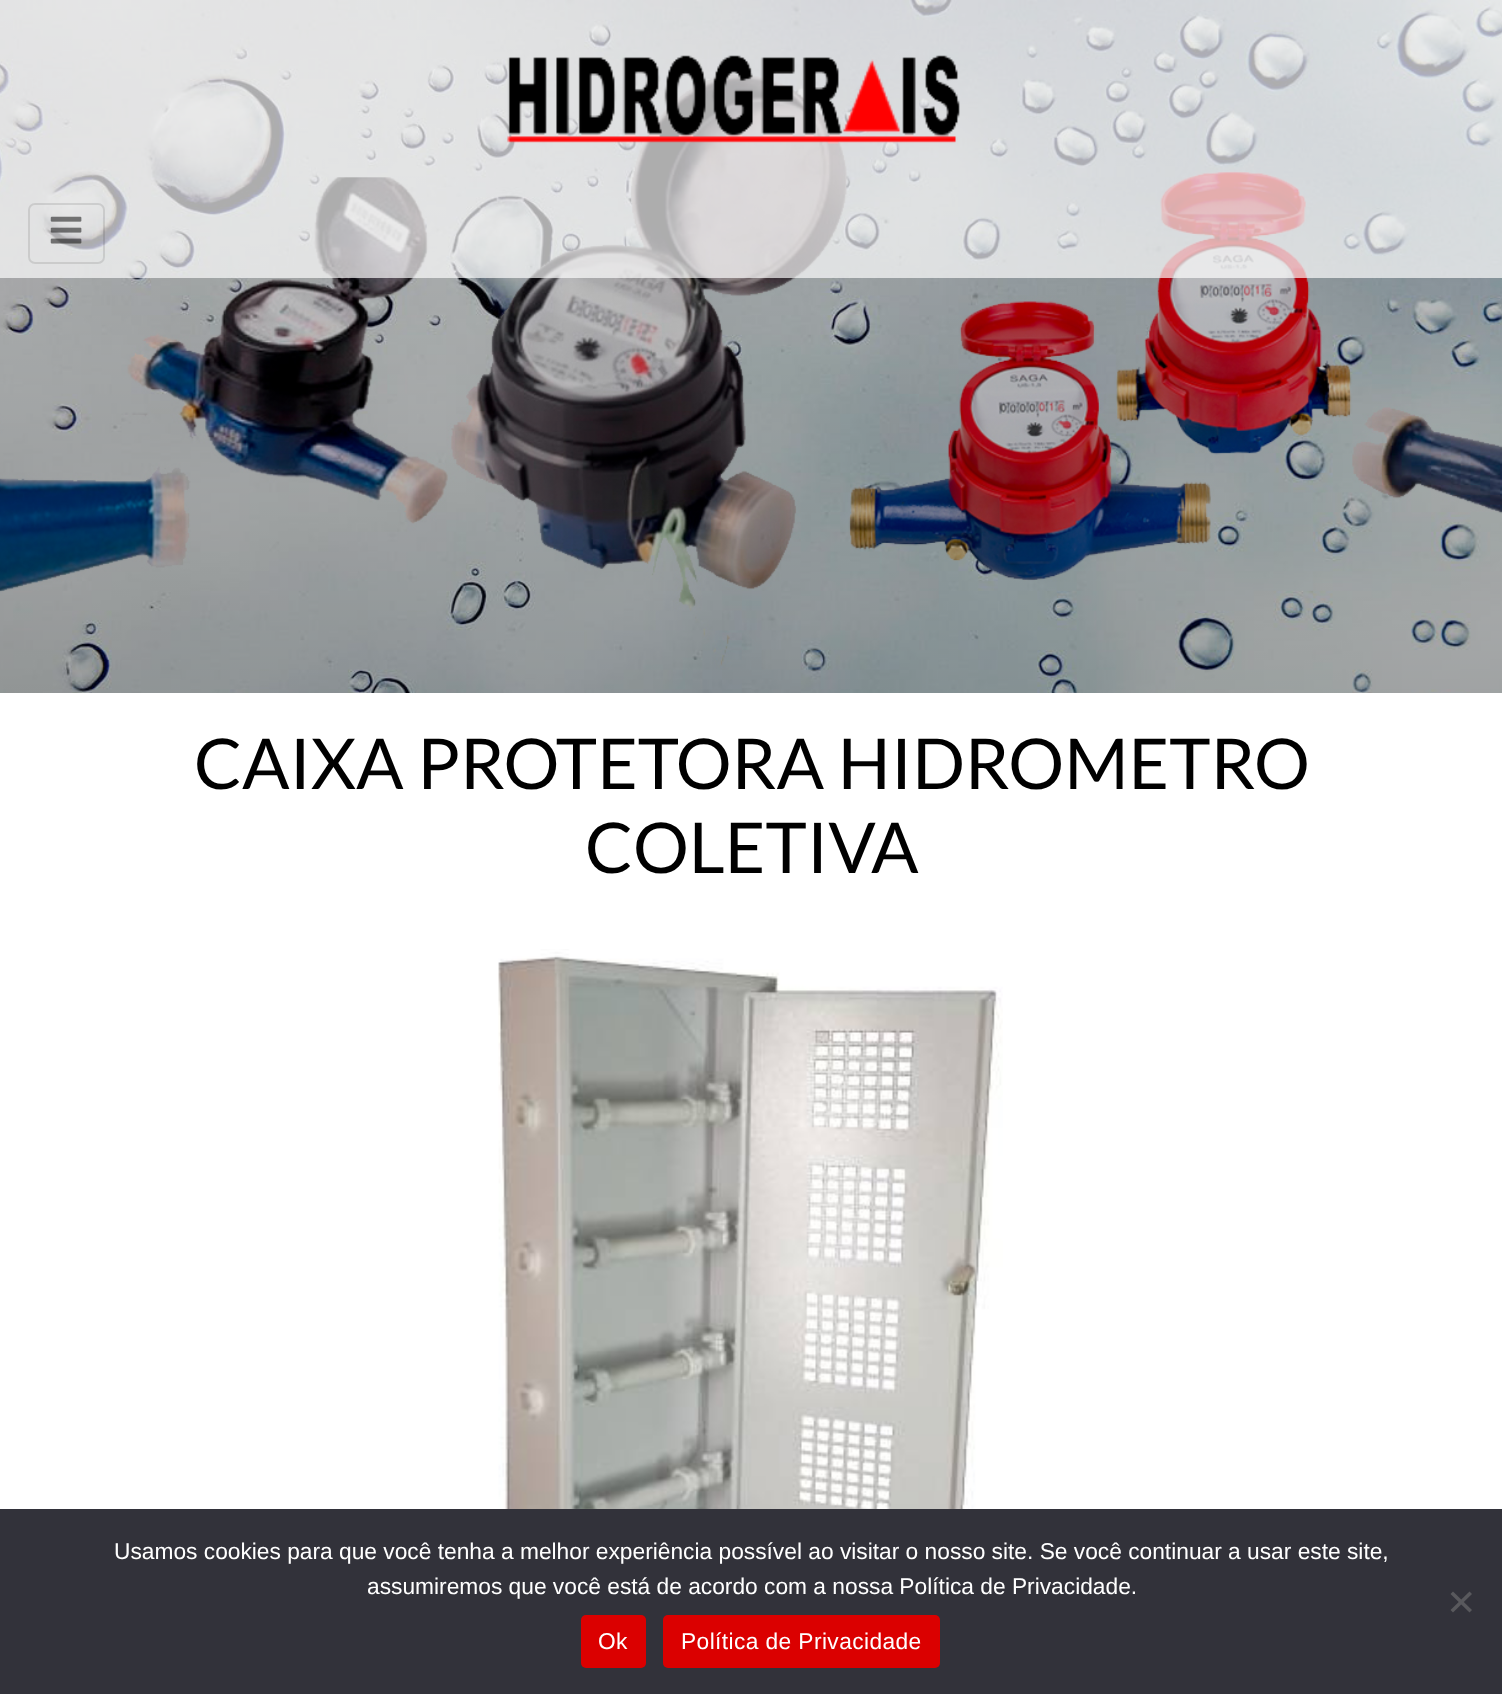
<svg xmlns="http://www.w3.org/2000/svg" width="1502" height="1694">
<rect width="100%" height="100%" fill="#fff"/>
<image x="0" y="0" width="1502" height="693" href="media/1.png"/>
<rect width="1502" height="278" fill="#ffffffad"/>
<image x="507" y="55" width="453" height="89" href="media/2.png"/>
<rect x="29" y="204" width="75" height="59" rx="6" fill="none" stroke="#0000001a" stroke-width="2"/>
<image x="50" y="216" width="32" height="28" href="media/3.png"/>
<text x="194" y="789" style="font-family:Lato;font-size:70px;fill:#000">CAIXA PROTETORA HIDROMETRO</text>
<text x="585" y="873" style="font-family:Lato;font-size:70px;fill:#000">COLETIVA</text>
<image x="498" y="949" width="505" height="560" href="media/4.png"/>
<rect y="1509" width="1502" height="185" fill="#32323a"/>
<text x="114" y="1559" style="font-family:Liberation Sans;font-size:22.75px;fill:#fff">Usamos cookies para que você tenha a melhor experiência possível ao visitar o nosso site. Se você continuar a usar este site,</text>
<text x="367" y="1594" style="font-family:Liberation Sans;font-size:22.75px;fill:#fff">assumiremos que você está de acordo com a nossa Política de Privacidade.</text>
<path d="M1469.5 1591.5l2.5 2.5l-19 18.5l-2.5-2.5z" fill="#59595d"/>
<path d="M1450.5 1594l2.5-2.5l19 18.5l-2.5 2.5z" fill="#59595d"/>
<rect x="581" y="1615" width="65" height="53" rx="5" fill="#db0000"/>
<text x="598" y="1649" style="font-family:Liberation Sans;font-size:22.75px;letter-spacing:0.4px;fill:#fff">Ok</text>
<rect x="663" y="1615" width="277" height="53" rx="5" fill="#db0000"/>
<text x="681" y="1649" style="font-family:Liberation Sans;font-size:22.75px;letter-spacing:0.4px;fill:#fff">Política de Privacidade</text>
</svg>
